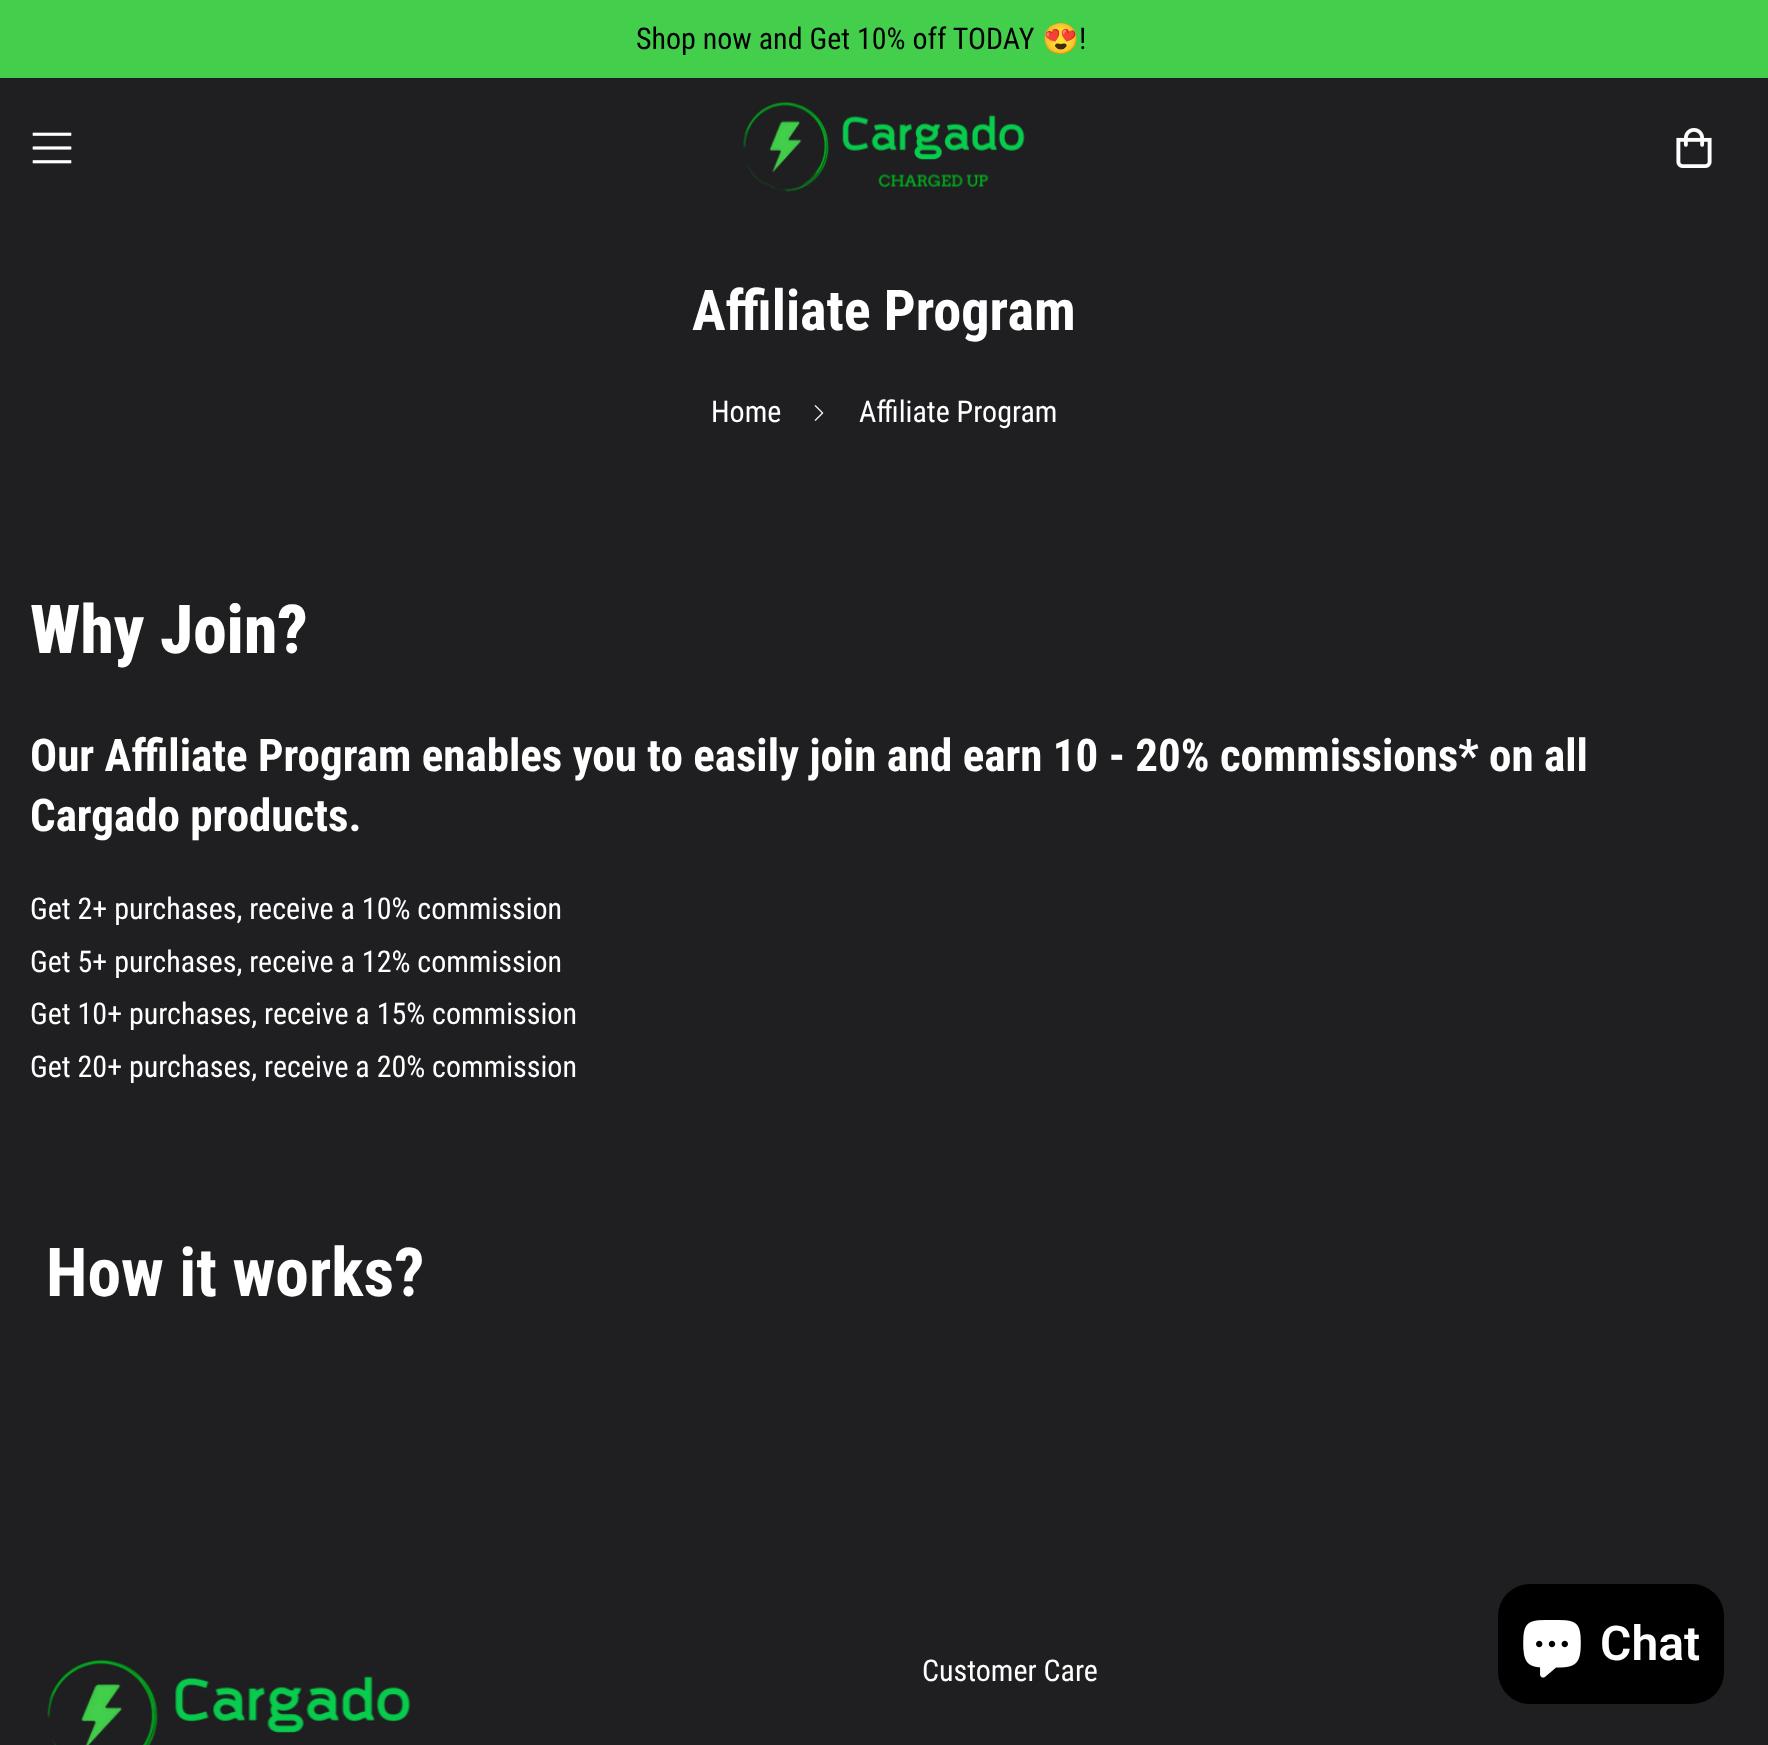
<svg xmlns="http://www.w3.org/2000/svg" width="1768" height="1745">
<rect width="100%" height="100%" fill="#1f1f21"/>
<rect width="1768" height="78" fill="#43cf4c"/>
<text x="636" y="49" style="font-family:Roboto Condensed;font-size:30px;fill:#000">Shop now and Get 10% off TODAY</text>
<text x="1042" y="49" style="font-family:Noto Color Emoji;font-size:30px;fill:#000">😍</text>
<text x="1079" y="49" style="font-family:Roboto Condensed;font-size:30px;fill:#000">!</text>
<image x="32" y="132" width="40" height="32" href="media/1.png"/>
<image x="743" y="102" width="282" height="90" href="media/2.png"/>
<image x="1676" y="128" width="36" height="40" href="media/3.png"/>
<text x="692" y="330" style="font-family:Roboto Condensed;font-size:56.25px;font-weight:bold;fill:#fff">Affiliate Program</text>
<text x="711" y="422" style="font-family:Roboto Condensed;font-size:30px;fill:#fff">Home</text>
<image x="814" y="405" width="10" height="16" href="media/4.png"/>
<text x="859" y="422" style="font-family:Roboto Condensed;font-size:30px;fill:#fff">Affiliate Program</text>
<text x="30" y="653" style="font-family:Roboto Condensed;font-size:67.5px;font-weight:800;fill:#fff">Why Join?</text>
<text x="30" y="771" style="font-family:Roboto Condensed;font-size:45px;font-weight:bold;fill:#fff">Our Affiliate Program enables you to easily join and earn 10 - 20% commissions* on all</text>
<text x="30" y="831" style="font-family:Roboto Condensed;font-size:45px;font-weight:bold;fill:#fff">Cargado products.</text>
<text x="30" y="919" style="font-family:Roboto Condensed;font-size:30px;fill:#fff">Get 2+ purchases, receive a 10% commission</text>
<text x="30" y="972" style="font-family:Roboto Condensed;font-size:30px;fill:#fff">Get 5+ purchases, receive a 12% commission</text>
<text x="30" y="1024" style="font-family:Roboto Condensed;font-size:30px;fill:#fff">Get 10+ purchases, receive a 15% commission</text>
<text x="30" y="1077" style="font-family:Roboto Condensed;font-size:30px;fill:#fff">Get 20+ purchases, receive a 20% commission</text>
<text x="46" y="1296" style="font-family:Roboto Condensed;font-size:67.5px;font-weight:bold;fill:#fff">How it works?</text>
<rect x="1498" y="1584" width="226" height="120" rx="32" fill="#000"/>
<image x="1523" y="1620" width="58" height="58" href="media/5.png"/>
<text x="1600" y="1660" style="font-family:Roboto;font-size:48px;font-weight:600;fill:#fff">Chat</text>
<image x="47" y="1659" width="364" height="86" href="media/6.png"/>
<text x="922" y="1681" style="font-family:Roboto Condensed;font-size:30px;fill:#fff">Customer Care</text>
</svg>
